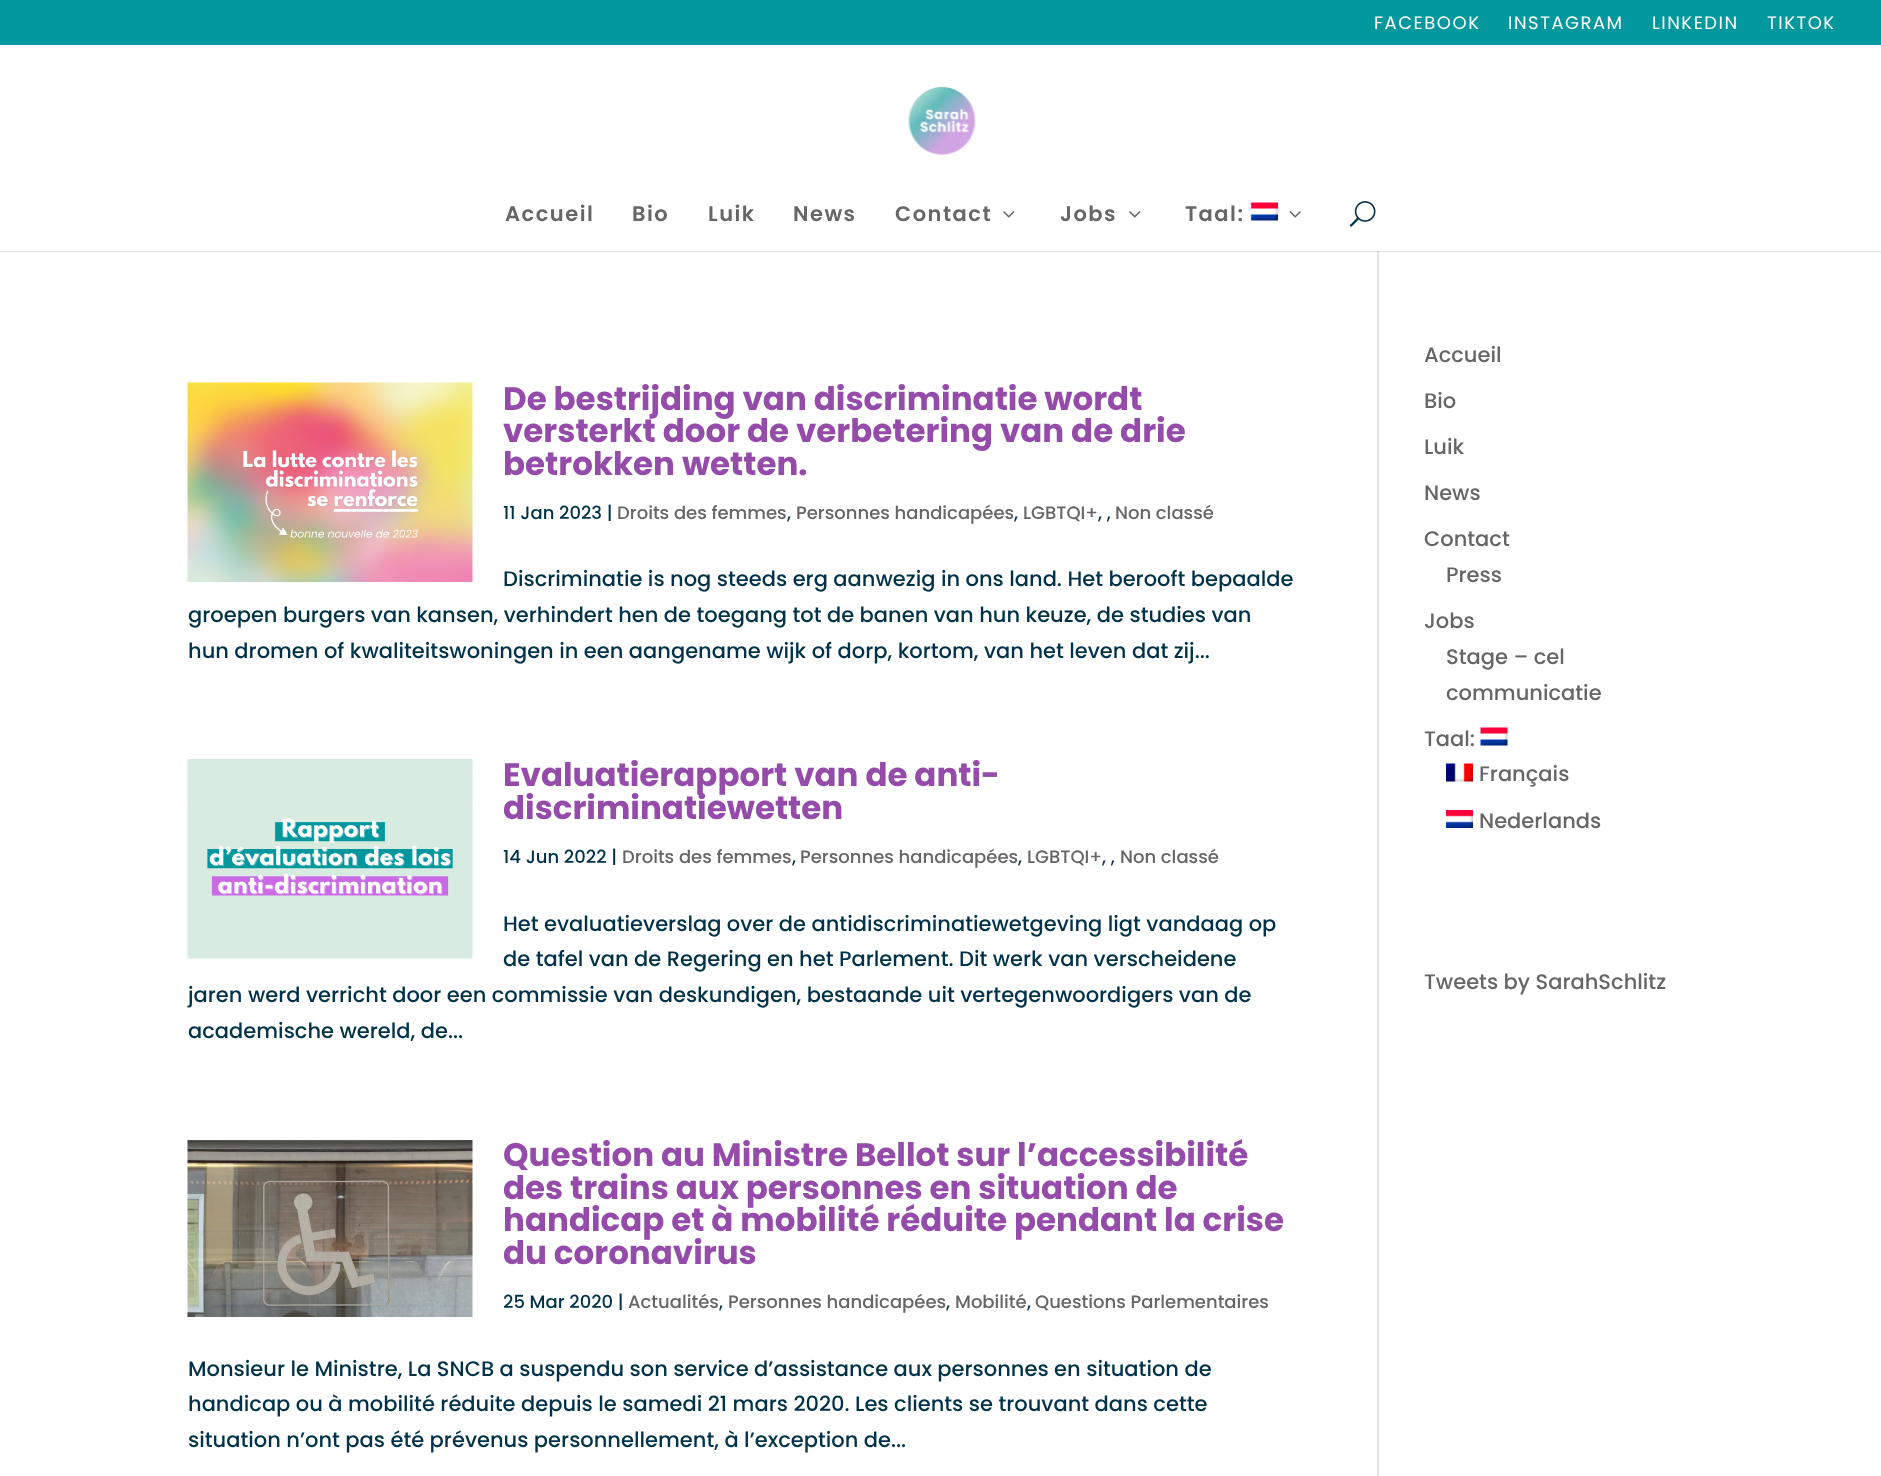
<svg xmlns="http://www.w3.org/2000/svg" width="1881" height="1476">
<rect width="100%" height="100%" fill="#fff"/>
<rect y="251" width="1881" height="1" fill="#e6e6e6"/>
<rect width="1881" height="45" fill="#03989e"/>
<text x="1374" y="29" style="font-family:Poppins;font-size:18px;letter-spacing:1.5px;fill:#fff">FACEBOOK</text>
<text x="1508" y="29" style="font-family:Poppins;font-size:18px;letter-spacing:1.5px;fill:#fff">INSTAGRAM</text>
<text x="1652" y="29" style="font-family:Poppins;font-size:18px;letter-spacing:1.5px;fill:#fff">LINKEDIN</text>
<text x="1767" y="29" style="font-family:Poppins;font-size:18px;letter-spacing:1.5px;fill:#fff">TIKTOK</text>
<image x="908" y="87" width="68" height="68" href="media/1.png"/>
<text x="505" y="221" style="font-family:Poppins;font-size:21px;font-weight:600;letter-spacing:1.5px;fill:#666">Accueil</text>
<text x="632" y="221" style="font-family:Poppins;font-size:21px;font-weight:600;letter-spacing:1.5px;fill:#666">Bio</text>
<text x="708" y="221" style="font-family:Poppins;font-size:21px;font-weight:600;letter-spacing:1.5px;fill:#666">Luik</text>
<text x="793" y="221" style="font-family:Poppins;font-size:21px;font-weight:600;letter-spacing:1.5px;fill:#666">News</text>
<text x="895" y="221" style="font-family:Poppins;font-size:21px;font-weight:600;letter-spacing:1.5px;fill:#666">Contact</text>
<image x="1003" y="211" width="12" height="7" href="media/2.png"/>
<text x="1060" y="221" style="font-family:Poppins;font-size:21px;font-weight:600;letter-spacing:1.5px;fill:#666">Jobs</text>
<image x="1129" y="211" width="12" height="7" href="media/2.png"/>
<text x="1185" y="221" style="font-family:Poppins;font-size:21px;font-weight:600;letter-spacing:1.5px;fill:#666">Taal:</text>
<image x="1250" y="202" width="28" height="19" href="media/3.png"/>
<image x="1289" y="211" width="12" height="7" href="media/4.png"/>
<image x="1349" y="201" width="27" height="26" href="media/5.png"/>
<rect x="1377" y="251" width="2" height="1225" fill="#e2e2e2"/>
<rect x="1377" y="251" width="2" height="1" fill="#cbcbcb"/>
<image x="187" y="382" width="286" height="200" href="media/6.png"/>
<text x="503" y="410" style="font-family:Poppins;font-size:32.5px;font-weight:bold;fill:#944ba9">De bestrijding van discriminatie wordt</text>
<text x="503" y="442" style="font-family:Poppins;font-size:32.5px;font-weight:bold;fill:#944ba9">versterkt door de verbetering van de drie</text>
<text x="503" y="475" style="font-family:Poppins;font-size:32.5px;font-weight:bold;fill:#944ba9">betrokken wetten.</text>
<text x="503" y="519" style="font-family:Poppins;font-size:18px;font-weight:500;fill:#003249">11 Jan 2023 |</text>
<text x="617" y="519" style="font-family:Poppins;font-size:18px;font-weight:500;fill:#666">Droits des femmes</text>
<text x="787" y="519" style="font-family:Poppins;font-size:18px;font-weight:500;fill:#003249">,</text>
<text x="796" y="519" style="font-family:Poppins;font-size:18px;font-weight:500;fill:#666">Personnes handicapées</text>
<text x="1014" y="519" style="font-family:Poppins;font-size:18px;font-weight:500;fill:#003249">,</text>
<text x="1023" y="519" style="font-family:Poppins;font-size:18px;font-weight:500;fill:#666">LGBTQI+</text>
<text x="1098" y="519" style="font-family:Poppins;font-size:18px;font-weight:500;fill:#003249">, ,</text>
<text x="1115" y="519" style="font-family:Poppins;font-size:18px;font-weight:500;fill:#666">Non classé</text>
<text x="503" y="586" style="font-family:Poppins;font-size:21px;font-weight:500;fill:#003249">Discriminatie is nog steeds erg aanwezig in ons land. Het berooft bepaalde</text>
<text x="188" y="622" style="font-family:Poppins;font-size:21px;font-weight:500;fill:#003249">groepen burgers van kansen, verhindert hen de toegang tot de banen van hun keuze, de studies van</text>
<text x="188" y="658" style="font-family:Poppins;font-size:21px;font-weight:500;fill:#003249">hun dromen of kwaliteitswoningen in een aangename wijk of dorp, kortom, van het leven dat zij...</text>
<image x="187" y="759" width="286" height="200" href="media/7.png"/>
<text x="503" y="786" style="font-family:Poppins;font-size:32.5px;font-weight:bold;fill:#944ba9">Evaluatierapport van de anti-</text>
<text x="503" y="819" style="font-family:Poppins;font-size:32.5px;font-weight:bold;fill:#944ba9">discriminatiewetten</text>
<text x="503" y="863" style="font-family:Poppins;font-size:18px;font-weight:500;fill:#003249">14 Jun 2022 |</text>
<text x="622" y="863" style="font-family:Poppins;font-size:18px;font-weight:500;fill:#666">Droits des femmes</text>
<text x="792" y="863" style="font-family:Poppins;font-size:18px;font-weight:500;fill:#003249">,</text>
<text x="800" y="863" style="font-family:Poppins;font-size:18px;font-weight:500;fill:#666">Personnes handicapées</text>
<text x="1018" y="863" style="font-family:Poppins;font-size:18px;font-weight:500;fill:#003249">,</text>
<text x="1027" y="863" style="font-family:Poppins;font-size:18px;font-weight:500;fill:#666">LGBTQI+</text>
<text x="1102" y="863" style="font-family:Poppins;font-size:18px;font-weight:500;fill:#003249">, ,</text>
<text x="1120" y="863" style="font-family:Poppins;font-size:18px;font-weight:500;fill:#666">Non classé</text>
<text x="503" y="931" style="font-family:Poppins;font-size:21px;font-weight:500;fill:#003249">Het evaluatieverslag over de antidiscriminatiewetgeving ligt vandaag op</text>
<text x="503" y="966" style="font-family:Poppins;font-size:21px;font-weight:500;fill:#003249">de tafel van de Regering en het Parlement. Dit werk van verscheidene</text>
<text x="188" y="1002" style="font-family:Poppins;font-size:21px;font-weight:500;fill:#003249">jaren werd verricht door een commissie van deskundigen, bestaande uit vertegenwoordigers van de</text>
<text x="188" y="1038" style="font-family:Poppins;font-size:21px;font-weight:500;fill:#003249">academische wereld, de...</text>
<image x="187" y="1140" width="286" height="177" href="media/8.png"/>
<text x="503" y="1166" style="font-family:Poppins;font-size:32.5px;font-weight:bold;fill:#944ba9">Question au Ministre Bellot sur l’accessibilité</text>
<text x="503" y="1199" style="font-family:Poppins;font-size:32.5px;font-weight:bold;fill:#944ba9">des trains aux personnes en situation de</text>
<text x="503" y="1231" style="font-family:Poppins;font-size:32.5px;font-weight:bold;fill:#944ba9">handicap et à mobilité réduite pendant la crise</text>
<text x="503" y="1264" style="font-family:Poppins;font-size:32.5px;font-weight:bold;fill:#944ba9">du coronavirus</text>
<text x="503" y="1308" style="font-family:Poppins;font-size:18px;font-weight:500;fill:#003249">25 Mar 2020 |</text>
<text x="628" y="1308" style="font-family:Poppins;font-size:18px;font-weight:500;fill:#666">Actualités</text>
<text x="719" y="1308" style="font-family:Poppins;font-size:18px;font-weight:500;fill:#003249">,</text>
<text x="728" y="1308" style="font-family:Poppins;font-size:18px;font-weight:500;fill:#666">Personnes handicapées</text>
<text x="946" y="1308" style="font-family:Poppins;font-size:18px;font-weight:500;fill:#003249">,</text>
<text x="955" y="1308" style="font-family:Poppins;font-size:18px;font-weight:500;fill:#666">Mobilité</text>
<text x="1027" y="1308" style="font-family:Poppins;font-size:18px;font-weight:500;fill:#003249">,</text>
<text x="1035" y="1308" style="font-family:Poppins;font-size:18px;font-weight:500;fill:#666">Questions Parlementaires</text>
<text x="188" y="1376" style="font-family:Poppins;font-size:21px;font-weight:500;fill:#003249">Monsieur le Ministre, La SNCB a suspendu son service d’assistance aux personnes en situation de</text>
<text x="188" y="1411" style="font-family:Poppins;font-size:21px;font-weight:500;fill:#003249">handicap ou à mobilité réduite depuis le samedi 21 mars 2020. Les clients se trouvant dans cette</text>
<text x="188" y="1447" style="font-family:Poppins;font-size:21px;font-weight:500;fill:#003249">situation n’ont pas été prévenus personnellement, à l’exception de...</text>
<text x="1424" y="362" style="font-family:Poppins;font-size:21px;font-weight:500;fill:#666">Accueil</text>
<text x="1424" y="408" style="font-family:Poppins;font-size:21px;font-weight:500;fill:#666">Bio</text>
<text x="1424" y="454" style="font-family:Poppins;font-size:21px;font-weight:500;fill:#666">Luik</text>
<text x="1424" y="500" style="font-family:Poppins;font-size:21px;font-weight:500;fill:#666">News</text>
<text x="1424" y="546" style="font-family:Poppins;font-size:21px;font-weight:500;fill:#666">Contact</text>
<text x="1446" y="582" style="font-family:Poppins;font-size:21px;font-weight:500;fill:#666">Press</text>
<text x="1424" y="628" style="font-family:Poppins;font-size:21px;font-weight:500;fill:#666">Jobs</text>
<text x="1446" y="664" style="font-family:Poppins;font-size:21px;font-weight:500;fill:#666">Stage – cel</text>
<text x="1446" y="700" style="font-family:Poppins;font-size:21px;font-weight:500;fill:#666">communicatie</text>
<text x="1424" y="746" style="font-family:Poppins;font-size:21px;font-weight:500;fill:#666">Taal:</text>
<image x="1480" y="727" width="28" height="19" href="media/9.png"/>
<image x="1446" y="763" width="27" height="19" href="media/10.png"/>
<text x="1479" y="781" style="font-family:Poppins;font-size:21px;font-weight:500;fill:#666">Français</text>
<image x="1446" y="810" width="27" height="18" href="media/11.png"/>
<text x="1479" y="828" style="font-family:Poppins;font-size:21px;font-weight:500;fill:#666">Nederlands</text>
<text x="1424" y="989" style="font-family:Poppins;font-size:21px;font-weight:500;fill:#666">Tweets by SarahSchlitz</text>
</svg>
